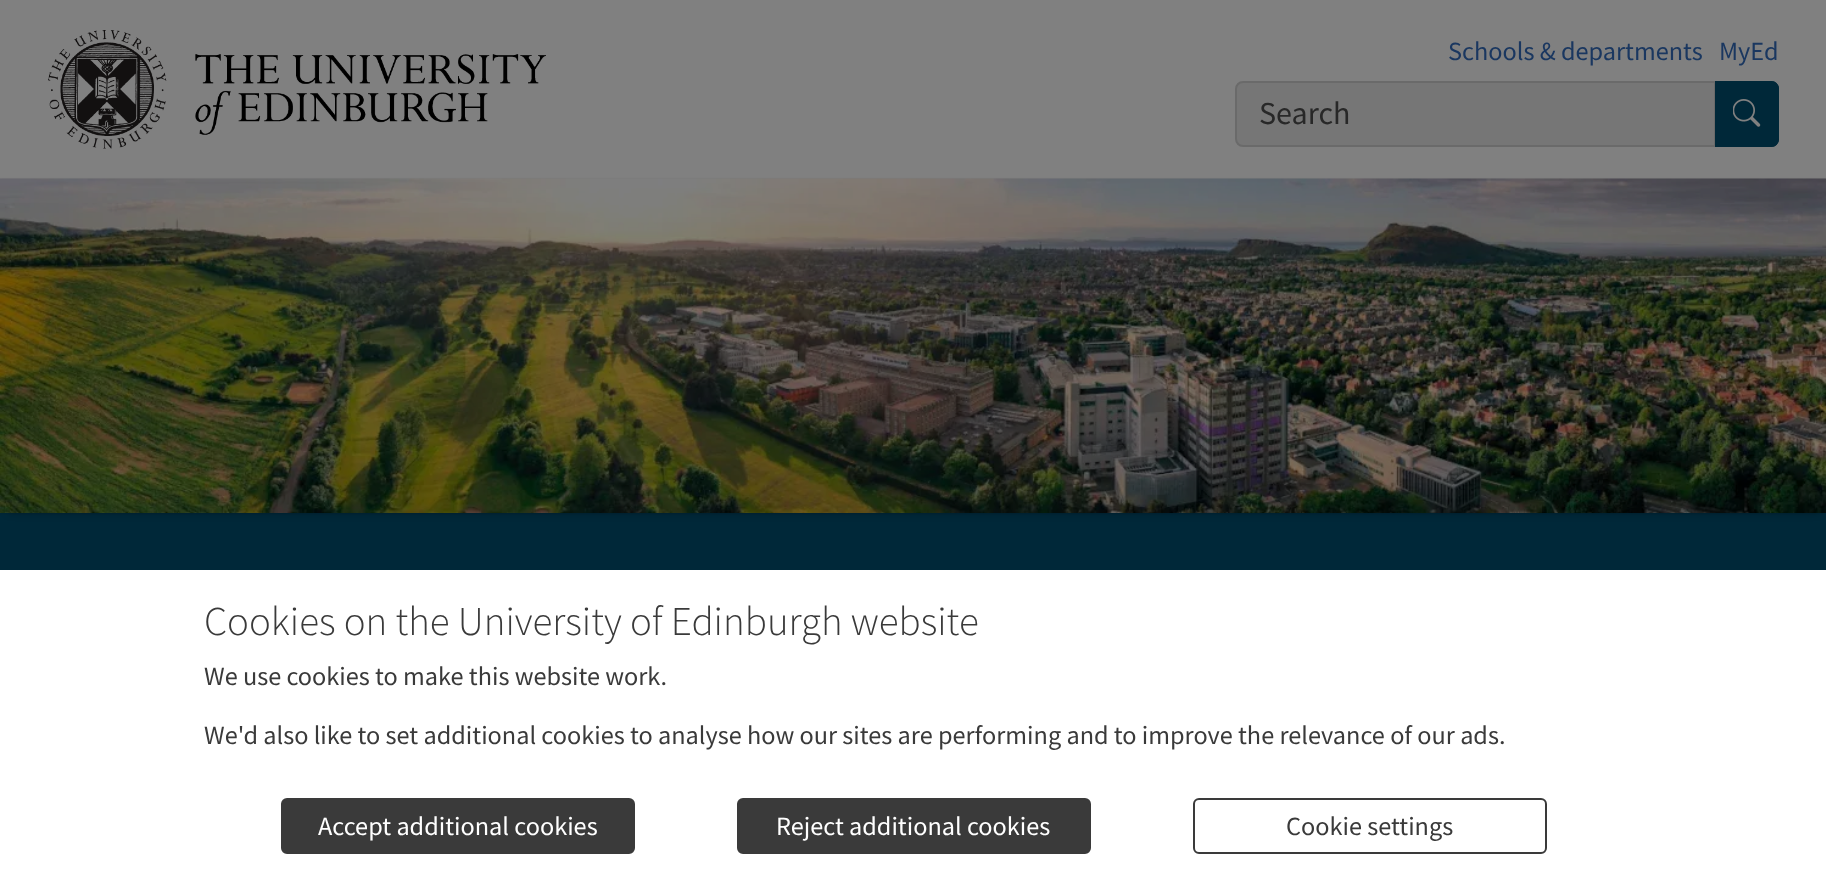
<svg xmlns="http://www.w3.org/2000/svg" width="1826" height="878">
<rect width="100%" height="100%" fill="#808080"/>
<image x="48" y="30" width="498" height="119" href="media/1.png"/>
<text x="1448" y="60" style="font-family:Source Sans Pro;font-size:26.25px;fill:#1a3760">Schools &amp; departments</text>
<text x="1719" y="60" style="font-family:Source Sans Pro;font-size:26.25px;fill:#1a3760">MyEd</text>
<path d="M1243 82h472v64h-472c-4 0-7-3-7-7v-50c0-4 3-7 7-7z" fill="#767676" stroke="#6a6a6a" stroke-width="2"/>
<text x="1259" y="124" style="font-family:Source Sans Pro;font-size:32px;fill:#282828">Search</text>
<path d="M1715 81h56c4.5 0 8 3.5 8 8v50c0 4.5-3.5 8-8 8h-56z" fill="#002839"/>
<image x="1733" y="99" width="28" height="28" href="media/2.png"/>
<path d="M1716 82h55c4 0 7 3 7 7v50c0 4-3 7-7 7h-55z" fill="none" stroke="#002839" stroke-width="2"/>
<rect y="513" width="1826" height="57" fill="#002839"/>
<rect y="179" width="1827" height="334" fill="#0000001a" filter="blur(1px)"/>
<rect x="8" y="192" width="1812" height="320" fill="#0000004d" filter="blur(4.5px)"/>
<image x="0" y="178" width="1826" height="335" href="media/3.png"/>
<rect y="570" width="1826" height="308" fill="#fff"/>
<text x="204" y="635" style="font-family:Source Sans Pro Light;font-size:40.9px;font-weight:300;fill:#3a3a3a">Cookies on the University of Edinburgh website</text>
<text x="204" y="685" style="font-family:Source Sans Pro;font-size:26.25px;fill:#3a3a3a">We use cookies to make this website work.</text>
<text x="204" y="744" style="font-family:Source Sans Pro;font-size:26.25px;fill:#3a3a3a">We'd also like to set additional cookies to analyse how our sites are performing and to improve the relevance of our ads.</text>
<rect x="282" y="799" width="352" height="54" rx="5" fill="#3a3a3a" stroke="#3a3a3a" stroke-width="2"/>
<text x="318" y="835" style="font-family:Source Sans Pro;font-size:26.25px;fill:#fff">Accept additional cookies</text>
<rect x="738" y="799" width="352" height="54" rx="5" fill="#3a3a3a" stroke="#3a3a3a" stroke-width="2"/>
<text x="776" y="835" style="font-family:Source Sans Pro;font-size:26.25px;fill:#fff">Reject additional cookies</text>
<rect x="1194" y="799" width="352" height="54" rx="5" fill="none" stroke="#3a3a3a" stroke-width="2"/>
<text x="1286" y="835" style="font-family:Source Sans Pro;font-size:26.25px;fill:#3a3a3a">Cookie settings</text>
</svg>
